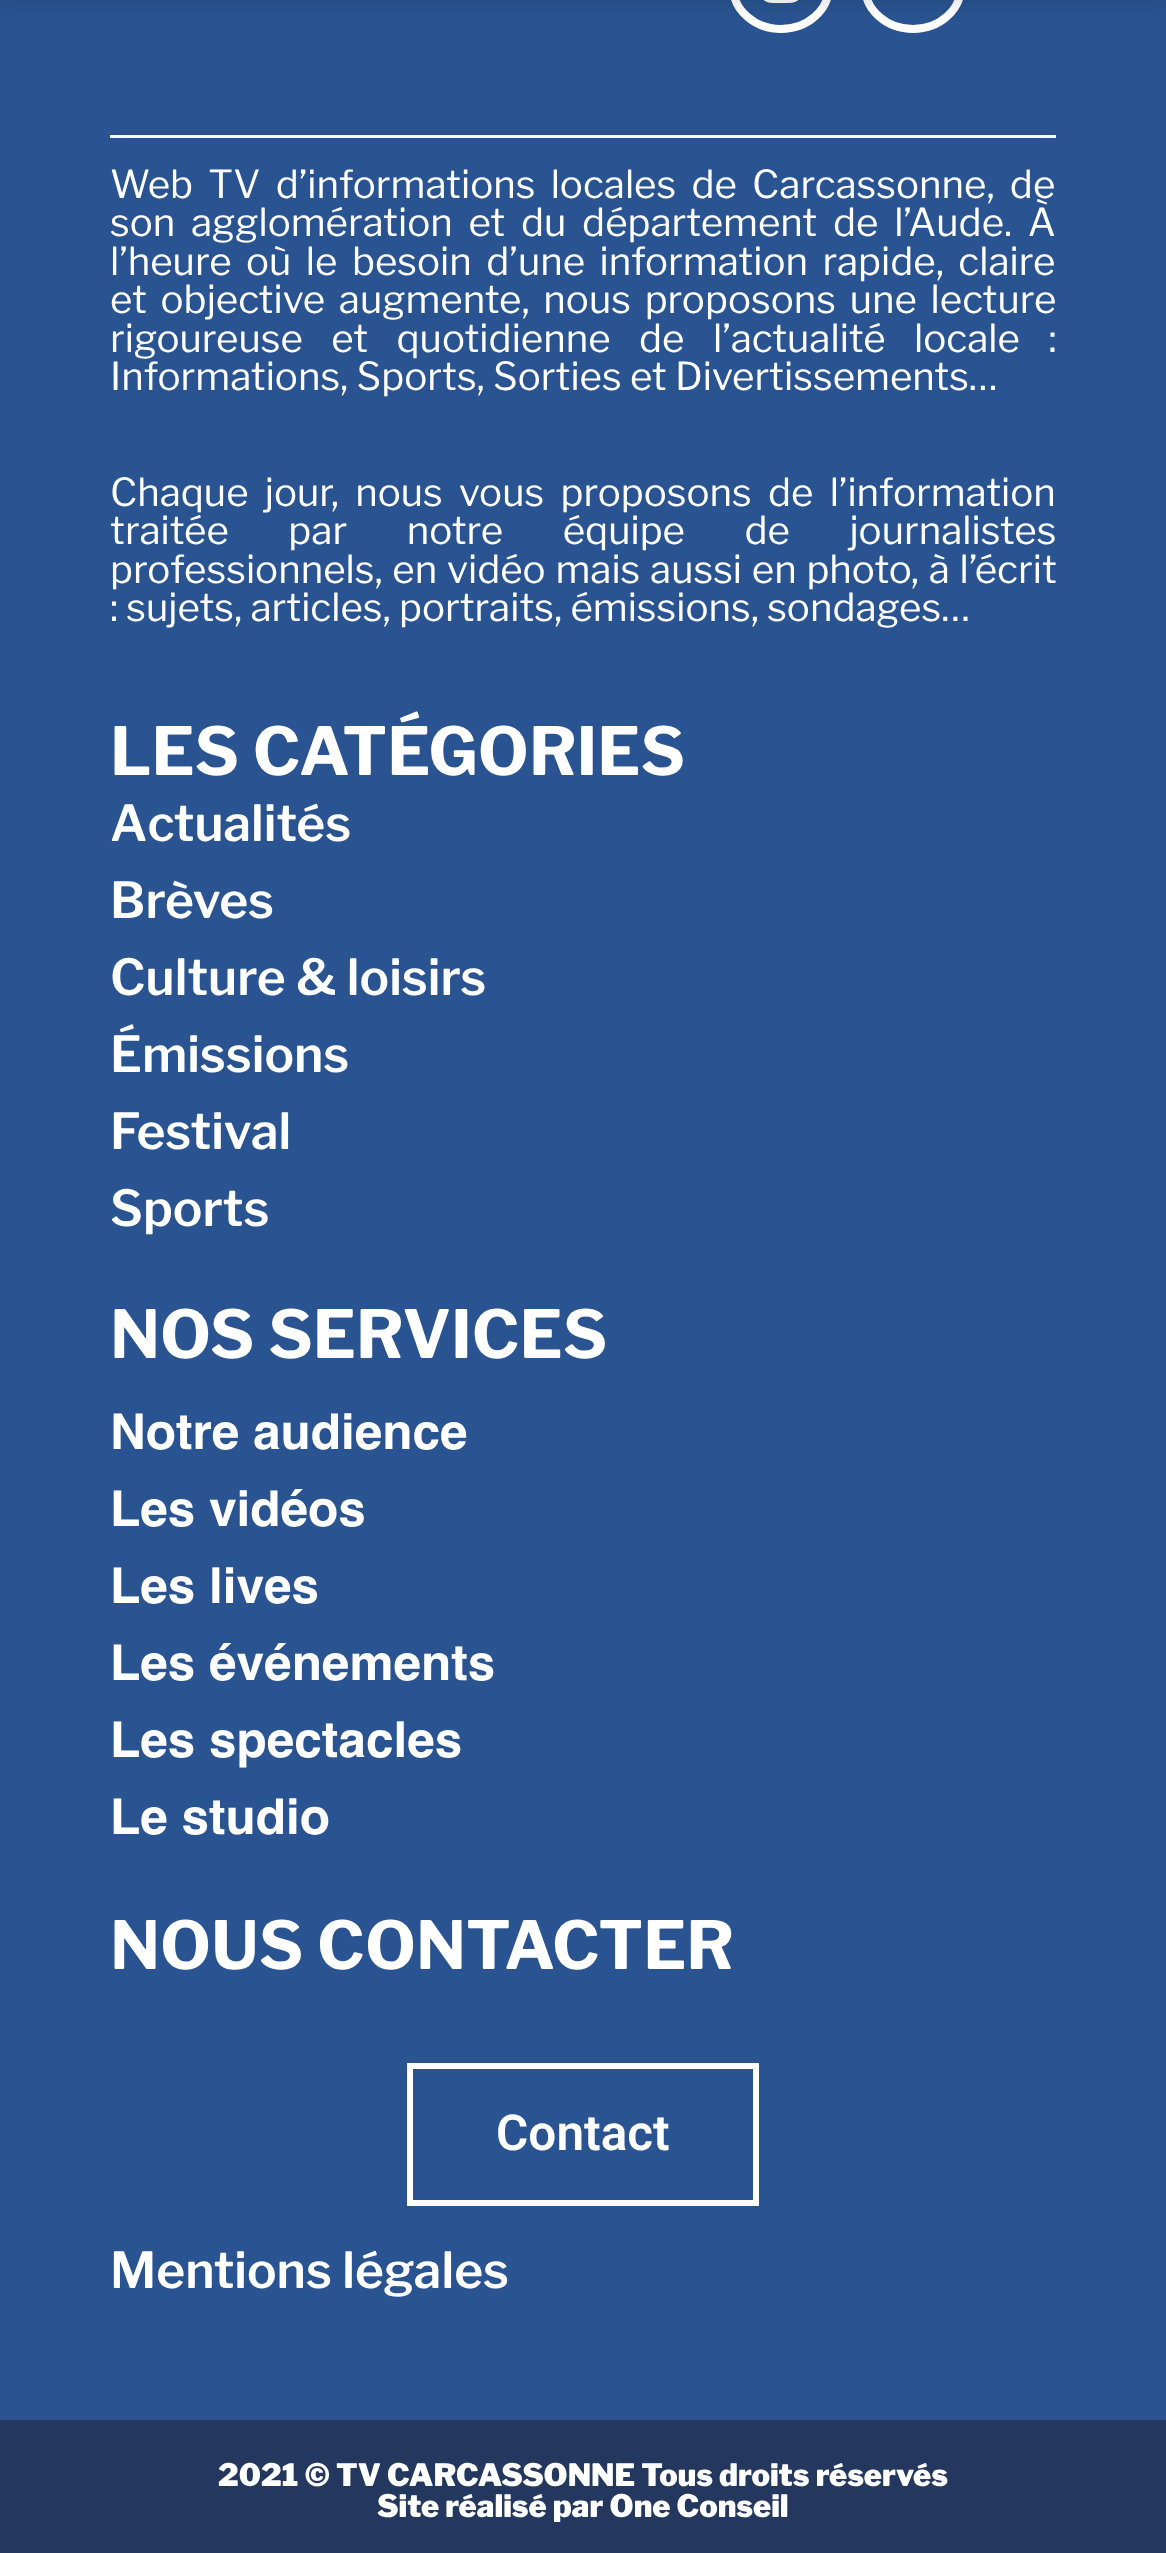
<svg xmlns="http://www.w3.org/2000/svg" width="1166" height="2553">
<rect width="100%" height="100%" fill="#295491"/>
<rect x="733" y="-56" width="96" height="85" rx="48" fill="none" stroke="#fff" stroke-width="8"/>
<image x="763" y="0" width="36" height="4" href="media/1.png"/>
<rect x="865" y="-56" width="96" height="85" rx="48" fill="none" stroke="#fff" stroke-width="8"/>
<rect y="-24" width="1166" height="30" fill="#0000001a" filter="blur(8px)"/>
<rect x="110" y="135" width="946" height="3" fill="#fff"/>
<text x="110" y="198" word-spacing="7" style="font-family:Libre Franklin;font-size:38.5px;fill:#fff">Web TV d’informations locales de Carcassonne, de</text>
<text x="110" y="236" word-spacing="7.5" style="font-family:Libre Franklin;font-size:38.5px;fill:#fff">son agglomération et du département de l’Aude. À</text>
<text x="110" y="275" word-spacing="6.25" style="font-family:Libre Franklin;font-size:38.5px;fill:#fff">l’heure où le besoin d’une information rapide, claire</text>
<text x="110" y="313" word-spacing="5.5" style="font-family:Libre Franklin;font-size:38.5px;fill:#fff">et objective augmente, nous proposons une lecture</text>
<text x="110" y="352" word-spacing="20.25" style="font-family:Libre Franklin;font-size:38.5px;fill:#fff">rigoureuse et quotidienne de l’actualité locale :</text>
<text x="110" y="390" style="font-family:Libre Franklin;font-size:38.5px;fill:#fff">Informations, Sports, Sorties et Divertissements…</text>
<text x="110" y="506" word-spacing="8" style="font-family:Libre Franklin;font-size:38.5px;fill:#fff">Chaque jour, nous vous proposons de l’information</text>
<text x="110" y="544" word-spacing="51.25" style="font-family:Libre Franklin;font-size:38.5px;fill:#fff">traitée par notre équipe de journalistes</text>
<text x="110" y="583" word-spacing="1.5" style="font-family:Libre Franklin;font-size:38.5px;fill:#fff">professionnels, en vidéo mais aussi en photo, à l’écrit</text>
<text x="110" y="621" style="font-family:Libre Franklin;font-size:38.5px;fill:#fff">: sujets, articles, portraits, émissions, sondages…</text>
<text x="110" y="775" style="font-family:Libre Franklin;font-size:66px;font-weight:bold;fill:#fff">LES CATÉGORIES</text>
<text x="110" y="841" style="font-family:Libre Franklin;font-size:49.5px;font-weight:600;fill:#fff">Actualités</text>
<text x="110" y="918" style="font-family:Libre Franklin;font-size:49.5px;font-weight:600;fill:#fff">Brèves</text>
<text x="110" y="995" style="font-family:Libre Franklin;font-size:49.5px;font-weight:600;fill:#fff">Culture &amp; loisirs</text>
<text x="110" y="1072" style="font-family:Libre Franklin;font-size:49.5px;font-weight:600;fill:#fff">Émissions</text>
<text x="110" y="1149" style="font-family:Libre Franklin;font-size:49.5px;font-weight:600;fill:#fff">Festival</text>
<text x="110" y="1226" style="font-family:Libre Franklin;font-size:49.5px;font-weight:600;fill:#fff">Sports</text>
<text x="110" y="1358" style="font-family:Libre Franklin;font-size:66px;font-weight:bold;fill:#fff">NOS SERVICES</text>
<text x="110" y="1449" style="font-family:Helvetica;font-size:49.5px;font-weight:bold;fill:#fff">Notre audience</text>
<text x="110" y="1526" style="font-family:Helvetica;font-size:49.5px;font-weight:bold;fill:#fff">Les vidéos</text>
<text x="110" y="1603" style="font-family:Helvetica;font-size:49.5px;font-weight:bold;fill:#fff">Les lives</text>
<text x="110" y="1680" style="font-family:Helvetica;font-size:49.5px;font-weight:bold;fill:#fff">Les événements</text>
<text x="110" y="1757" style="font-family:Helvetica;font-size:49.5px;font-weight:bold;fill:#fff">Les spectacles</text>
<text x="110" y="1834" style="font-family:Helvetica;font-size:49.5px;font-weight:bold;fill:#fff">Le studio</text>
<text x="110" y="1969" style="font-family:Libre Franklin;font-size:66px;font-weight:bold;fill:#fff">NOUS CONTACTER</text>
<rect x="410" y="2066" width="346" height="137" fill="none" stroke="#fff" stroke-width="6"/>
<text x="496" y="2150" style="font-family:Roboto;font-size:49.5px;font-weight:600;fill:#fff">Contact</text>
<text x="110" y="2288" style="font-family:Libre Franklin;font-size:49.5px;font-weight:600;fill:#fff">Mentions légales</text>
<rect y="2420" width="1166" height="133" fill="#24385f"/>
<text x="218" y="2486" style="font-family:Libre Franklin;font-size:30.8px;font-weight:900;fill:#fff">2021 © TV CARCASSONNE Tous droits réservés</text>
<text x="377" y="2517" style="font-family:Libre Franklin;font-size:30.8px;font-weight:900;fill:#fff">Site réalisé par One Conseil</text>
</svg>
